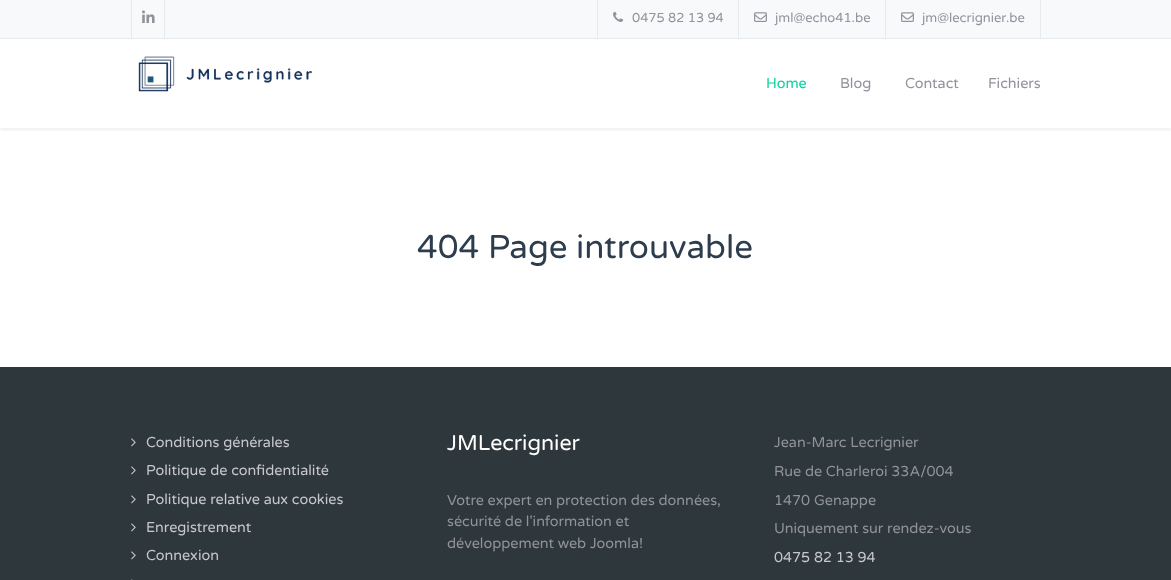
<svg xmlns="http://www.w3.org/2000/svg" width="1171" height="580">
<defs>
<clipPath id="clip1"><rect x="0" y="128" width="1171" height="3"/></clipPath>
</defs>
<rect width="100%" height="100%" fill="#fff"/>
<rect width="1171" height="38" fill="#f8f9fa"/>
<rect y="38" width="1171" height="1" fill="#e6eaed"/>
<rect x="164" width="1" height="38" fill="#e6eaed"/>
<rect x="131" width="1" height="38" fill="#e6eaed"/>
<image x="142" y="10" width="13" height="13" href="media/1.png"/>
<rect x="738" width="1" height="38" fill="#e6eaed"/>
<rect x="597" width="1" height="38" fill="#e6eaed"/>
<image x="613" y="11" width="11" height="11" href="media/2.png"/>
<text x="632" y="22" style="font-family:Varela Round;font-size:13px;fill:#91929c">0475 82 13 94</text>
<rect x="885" width="1" height="38" fill="#e6eaed"/>
<image x="754" y="12" width="13" height="10" href="media/3.png"/>
<text x="775" y="22" style="font-family:Varela Round;font-size:13px;fill:#91929c">jml@echo41.be</text>
<rect x="1040" width="1" height="38" fill="#e6eaed"/>
<image x="901" y="12" width="13" height="10" href="media/3.png"/>
<text x="922" y="22" style="font-family:Varela Round;font-size:13px;fill:#91929c">jm@lecrignier.be</text>
<g clip-path="url(#clip1)">
<rect y="42" width="1171" height="89" fill="#0000000d" filter="blur(1.5px)"/>
</g>
<image x="138" y="56" width="174" height="36" href="media/4.png"/>
<text x="766" y="88" style="font-family:Varela Round;font-size:14.4px;fill:#0ad1a0">Home</text>
<text x="840" y="88" style="font-family:Varela Round;font-size:14.4px;fill:#91929c">Blog</text>
<text x="905" y="88" style="font-family:Varela Round;font-size:14.4px;fill:#91929c">Contact</text>
<text x="988" y="88" style="font-family:Varela Round;font-size:14.4px;fill:#91929c">Fichiers</text>
<text x="417" y="258" style="font-family:Varela Round;font-size:33.1px;fill:#2d3d4d">404 Page introuvable</text>
<rect y="367" width="1171" height="213" fill="#2e373c"/>
<image x="131" y="438" width="5" height="9" href="media/5.png"/>
<text x="146" y="447" style="font-family:Varela Round;font-size:14.4px;fill:#c7c7cc">Conditions générales</text>
<image x="131" y="466" width="5" height="9" href="media/5.png"/>
<text x="146" y="475" style="font-family:Varela Round;font-size:14.4px;fill:#c7c7cc">Politique de confidentialité</text>
<image x="131" y="495" width="5" height="9" href="media/5.png"/>
<text x="146" y="504" style="font-family:Varela Round;font-size:14.4px;fill:#c7c7cc">Politique relative aux cookies</text>
<image x="131" y="523" width="5" height="9" href="media/5.png"/>
<text x="146" y="532" style="font-family:Varela Round;font-size:14.4px;fill:#c7c7cc">Enregistrement</text>
<image x="131" y="551" width="5" height="9" href="media/5.png"/>
<text x="146" y="560" style="font-family:Varela Round;font-size:14.4px;fill:#c7c7cc">Connexion</text>
<image x="131" y="579" width="2" height="1" href="media/6.png"/>
<text x="447" y="450" style="font-family:Varela Round;font-size:21.5px;fill:#fff">JMLecrignier</text>
<text x="447" y="505" style="font-family:Varela Round;font-size:14.4px;fill:#91929c">Votre expert en protection des données,</text>
<text x="447" y="526" style="font-family:Varela Round;font-size:14.4px;fill:#91929c">sécurité de l'information et</text>
<text x="447" y="548" style="font-family:Varela Round;font-size:14.4px;fill:#91929c">développement web Joomla!</text>
<text x="774" y="447" style="font-family:Varela Round;font-size:14.4px;fill:#91929c">Jean-Marc Lecrignier</text>
<text x="774" y="476" style="font-family:Varela Round;font-size:14.4px;fill:#91929c">Rue de Charleroi 33A/004</text>
<text x="774" y="505" style="font-family:Varela Round;font-size:14.4px;fill:#91929c">1470 Genappe</text>
<text x="774" y="533" style="font-family:Varela Round;font-size:14.4px;fill:#91929c">Uniquement sur rendez-vous</text>
<text x="774" y="562" style="font-family:Varela Round;font-size:14.4px;fill:#c7c7cc">0475 82 13 94</text>
</svg>
